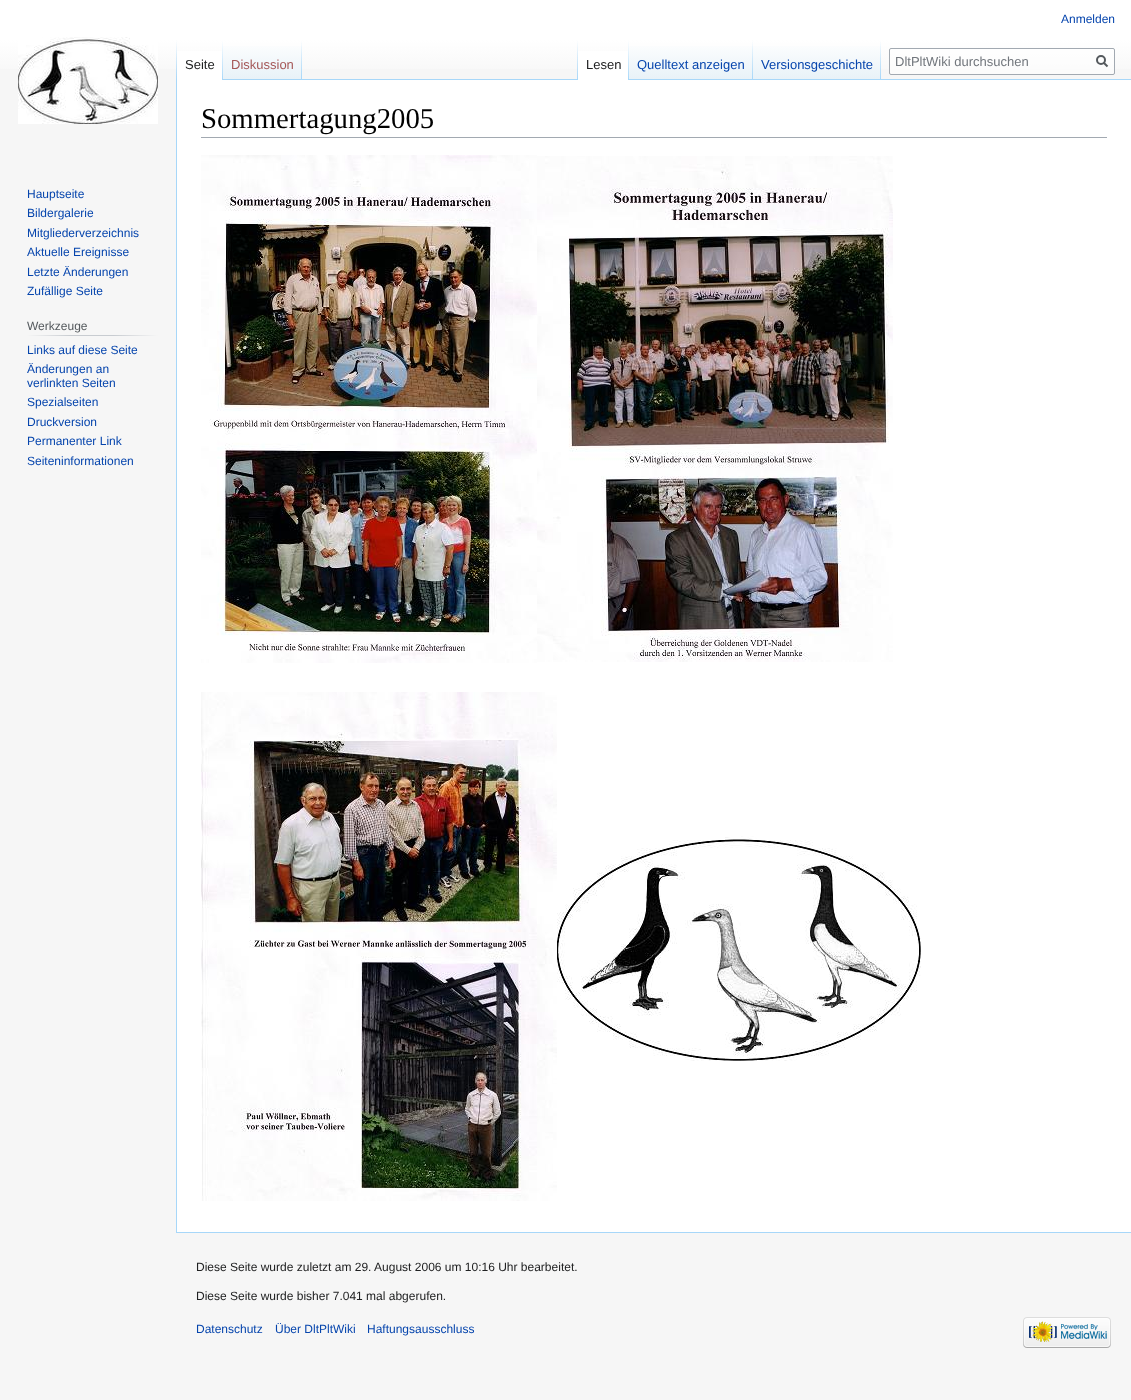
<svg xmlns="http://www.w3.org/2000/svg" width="1131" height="1400">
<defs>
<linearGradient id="g1" gradientUnits="userSpaceOnUse" x1="566" y1="0" x2="566" y2="80"><stop offset="0.5" stop-color="#fff"/><stop offset="1" stop-color="#f6f6f6"/></linearGradient>
<linearGradient id="g2" gradientUnits="userSpaceOnUse" x1="177" y1="40" x2="177" y2="80"><stop offset="0" stop-color="#a7d7f9" stop-opacity="0"/><stop offset="1" stop-color="#a7d7f9"/></linearGradient>
<linearGradient id="g3" gradientUnits="userSpaceOnUse" x1="223" y1="40" x2="223" y2="80"><stop offset="0" stop-color="#fff"/><stop offset="1" stop-color="#a7d7f9"/></linearGradient>
<linearGradient id="g4" gradientUnits="userSpaceOnUse" x1="263" y1="80" x2="263" y2="40"><stop offset="0" stop-color="#77c1f6"/><stop offset="0.03" stop-color="#e8f2f8"/><stop offset="1" stop-color="#fff"/></linearGradient>
<linearGradient id="g5" gradientUnits="userSpaceOnUse" x1="302" y1="40" x2="302" y2="80"><stop offset="0" stop-color="#a7d7f9" stop-opacity="0"/><stop offset="1" stop-color="#a7d7f9"/></linearGradient>
<linearGradient id="g6" gradientUnits="userSpaceOnUse" x1="578" y1="40" x2="578" y2="80"><stop offset="0" stop-color="#a7d7f9" stop-opacity="0"/><stop offset="1" stop-color="#a7d7f9"/></linearGradient>
<linearGradient id="g7" gradientUnits="userSpaceOnUse" x1="629" y1="40" x2="629" y2="80"><stop offset="0" stop-color="#fff"/><stop offset="1" stop-color="#a7d7f9"/></linearGradient>
<linearGradient id="g8" gradientUnits="userSpaceOnUse" x1="691" y1="80" x2="691" y2="40"><stop offset="0" stop-color="#77c1f6"/><stop offset="0.03" stop-color="#e8f2f8"/><stop offset="1" stop-color="#fff"/></linearGradient>
<linearGradient id="g9" gradientUnits="userSpaceOnUse" x1="753" y1="40" x2="753" y2="80"><stop offset="0" stop-color="#a7d7f9" stop-opacity="0"/><stop offset="1" stop-color="#a7d7f9"/></linearGradient>
<linearGradient id="g10" gradientUnits="userSpaceOnUse" x1="817" y1="80" x2="817" y2="40"><stop offset="0" stop-color="#77c1f6"/><stop offset="0.03" stop-color="#e8f2f8"/><stop offset="1" stop-color="#fff"/></linearGradient>
<linearGradient id="g11" gradientUnits="userSpaceOnUse" x1="881" y1="40" x2="881" y2="80"><stop offset="0" stop-color="#a7d7f9" stop-opacity="0"/><stop offset="1" stop-color="#a7d7f9"/></linearGradient>
<linearGradient id="g12" gradientUnits="userSpaceOnUse" x1="27" y1="336" x2="158" y2="336"><stop offset="0" stop-color="#f6f6f6"/><stop offset="0.33" stop-color="#c8ccd1"/><stop offset="0.66" stop-color="#c8ccd1"/><stop offset="1" stop-color="#f6f6f6"/></linearGradient>
</defs>
<rect width="100%" height="100%" fill="#f6f6f6"/>
<rect width="1131" height="69" fill="url(#g1)"/>
<text x="1061" y="23" style="font-family:Liberation Sans;font-size:12px;fill:#0645ad">Anmelden</text>
<rect x="176" y="1232" width="955" height="1" fill="#a7d7f9"/>
<rect x="176" y="79" width="1" height="1154" fill="#a7d7f9"/>
<rect x="176" y="40" width="1" height="40" fill="url(#g2)"/>
<rect x="177" y="51" width="45" height="29" fill="#fff"/>
<rect x="222" y="40" width="1" height="40" fill="url(#g3)"/>
<text x="185" y="69" style="font-family:Liberation Sans;font-size:13px;fill:#202122">Seite</text>
<rect x="223" y="46" width="79" height="34" fill="url(#g4)"/>
<rect x="301" y="40" width="1" height="40" fill="url(#g5)"/>
<text x="231" y="69" style="font-family:Liberation Sans;font-size:13px;fill:#a55858">Diskussion</text>
<rect x="302" y="79" width="829" height="1" fill="#a7d7f9"/>
<rect x="577" y="40" width="1" height="40" fill="url(#g6)"/>
<rect x="578" y="51" width="50" height="29" fill="#fff"/>
<rect x="628" y="40" width="1" height="40" fill="url(#g7)"/>
<text x="586" y="69" style="font-family:Liberation Sans;font-size:13px;fill:#202122">Lesen</text>
<rect x="629" y="46" width="124" height="33" fill="url(#g8)"/>
<rect x="752" y="40" width="1" height="40" fill="url(#g9)"/>
<text x="637" y="69" style="font-family:Liberation Sans;font-size:13px;fill:#0645ad">Quelltext anzeigen</text>
<rect x="753" y="46" width="128" height="33" fill="url(#g10)"/>
<rect x="880" y="40" width="1" height="40" fill="url(#g11)"/>
<text x="761" y="69" style="font-family:Liberation Sans;font-size:13px;fill:#0645ad">Versionsgeschichte</text>
<rect x="889.5" y="48.5" width="225" height="26" rx="1.5" fill="#ffffff80" stroke="#a2a9b1"/>
<text x="895" y="66" style="font-family:Liberation Sans;font-size:13px;fill:#72777d">DltPltWiki durchsuchen</text>
<path d="M1107.5 66.5l-4-4" fill="none" stroke="#54595d" stroke-width="2"/>
<circle cx="1101" cy="60" r="4" fill="none" stroke="#54595d" stroke-width="2"/>
<image x="18" y="37" width="140" height="87" href="media/1.png"/>
<text x="27" y="198" style="font-family:Liberation Sans;font-size:12px;fill:#0645ad">Hauptseite</text>
<text x="27" y="217" style="font-family:Liberation Sans;font-size:12px;fill:#0645ad">Bildergalerie</text>
<text x="27" y="237" style="font-family:Liberation Sans;font-size:12px;fill:#0645ad">Mitgliederverzeichnis</text>
<text x="27" y="256" style="font-family:Liberation Sans;font-size:12px;fill:#0645ad">Aktuelle Ereignisse</text>
<text x="27" y="276" style="font-family:Liberation Sans;font-size:12px;fill:#0645ad">Letzte Änderungen</text>
<text x="27" y="295" style="font-family:Liberation Sans;font-size:12px;fill:#0645ad">Zufällige Seite</text>
<rect x="27" y="335" width="131" height="1" fill="url(#g12)"/>
<text x="27" y="330" style="font-family:Liberation Sans;font-size:12px;fill:#54595d">Werkzeuge</text>
<text x="27" y="354" style="font-family:Liberation Sans;font-size:12px;fill:#0645ad">Links auf diese Seite</text>
<text x="27" y="373" style="font-family:Liberation Sans;font-size:12px;fill:#0645ad">Änderungen an</text>
<text x="27" y="387" style="font-family:Liberation Sans;font-size:12px;fill:#0645ad">verlinkten Seiten</text>
<text x="27" y="406" style="font-family:Liberation Sans;font-size:12px;fill:#0645ad">Spezialseiten</text>
<text x="27" y="426" style="font-family:Liberation Sans;font-size:12px;fill:#0645ad">Druckversion</text>
<text x="27" y="445" style="font-family:Liberation Sans;font-size:12px;fill:#0645ad">Permanenter Link</text>
<text x="27" y="465" style="font-family:Liberation Sans;font-size:12px;fill:#0645ad">Seiteninformationen</text>
<rect x="177" y="80" width="954" height="1152" fill="#fff"/>
<rect x="201" y="137" width="906" height="1" fill="#a2a9b1"/>
<text x="201" y="128" style="font-family:Liberation Serif;font-size:28.75px;fill:#000">Sommertagung2005</text>
<image x="201" y="155" width="336" height="508" href="media/2.png"/>
<image x="537" y="156" width="356" height="506" href="media/3.png"/>
<image x="201" y="692" width="356" height="509" href="media/4.png"/>
<image x="557" y="836" width="364" height="225" href="media/5.png"/>
<text x="196" y="1271" style="font-family:Liberation Sans;font-size:12px;fill:#202122">Diese Seite wurde zuletzt am 29. August 2006 um 10:16 Uhr bearbeitet.</text>
<text x="196" y="1300" style="font-family:Liberation Sans;font-size:12px;fill:#202122">Diese Seite wurde bisher 7.041 mal abgerufen.</text>
<text x="196" y="1333" style="font-family:Liberation Sans;font-size:12px;fill:#0645ad">Datenschutz</text>
<text x="275" y="1333" style="font-family:Liberation Sans;font-size:12px;fill:#0645ad">Über DltPltWiki</text>
<text x="367" y="1333" style="font-family:Liberation Sans;font-size:12px;fill:#0645ad">Haftungsausschluss</text>
<image x="1023" y="1317" width="88" height="31" href="media/6.png"/>
</svg>
